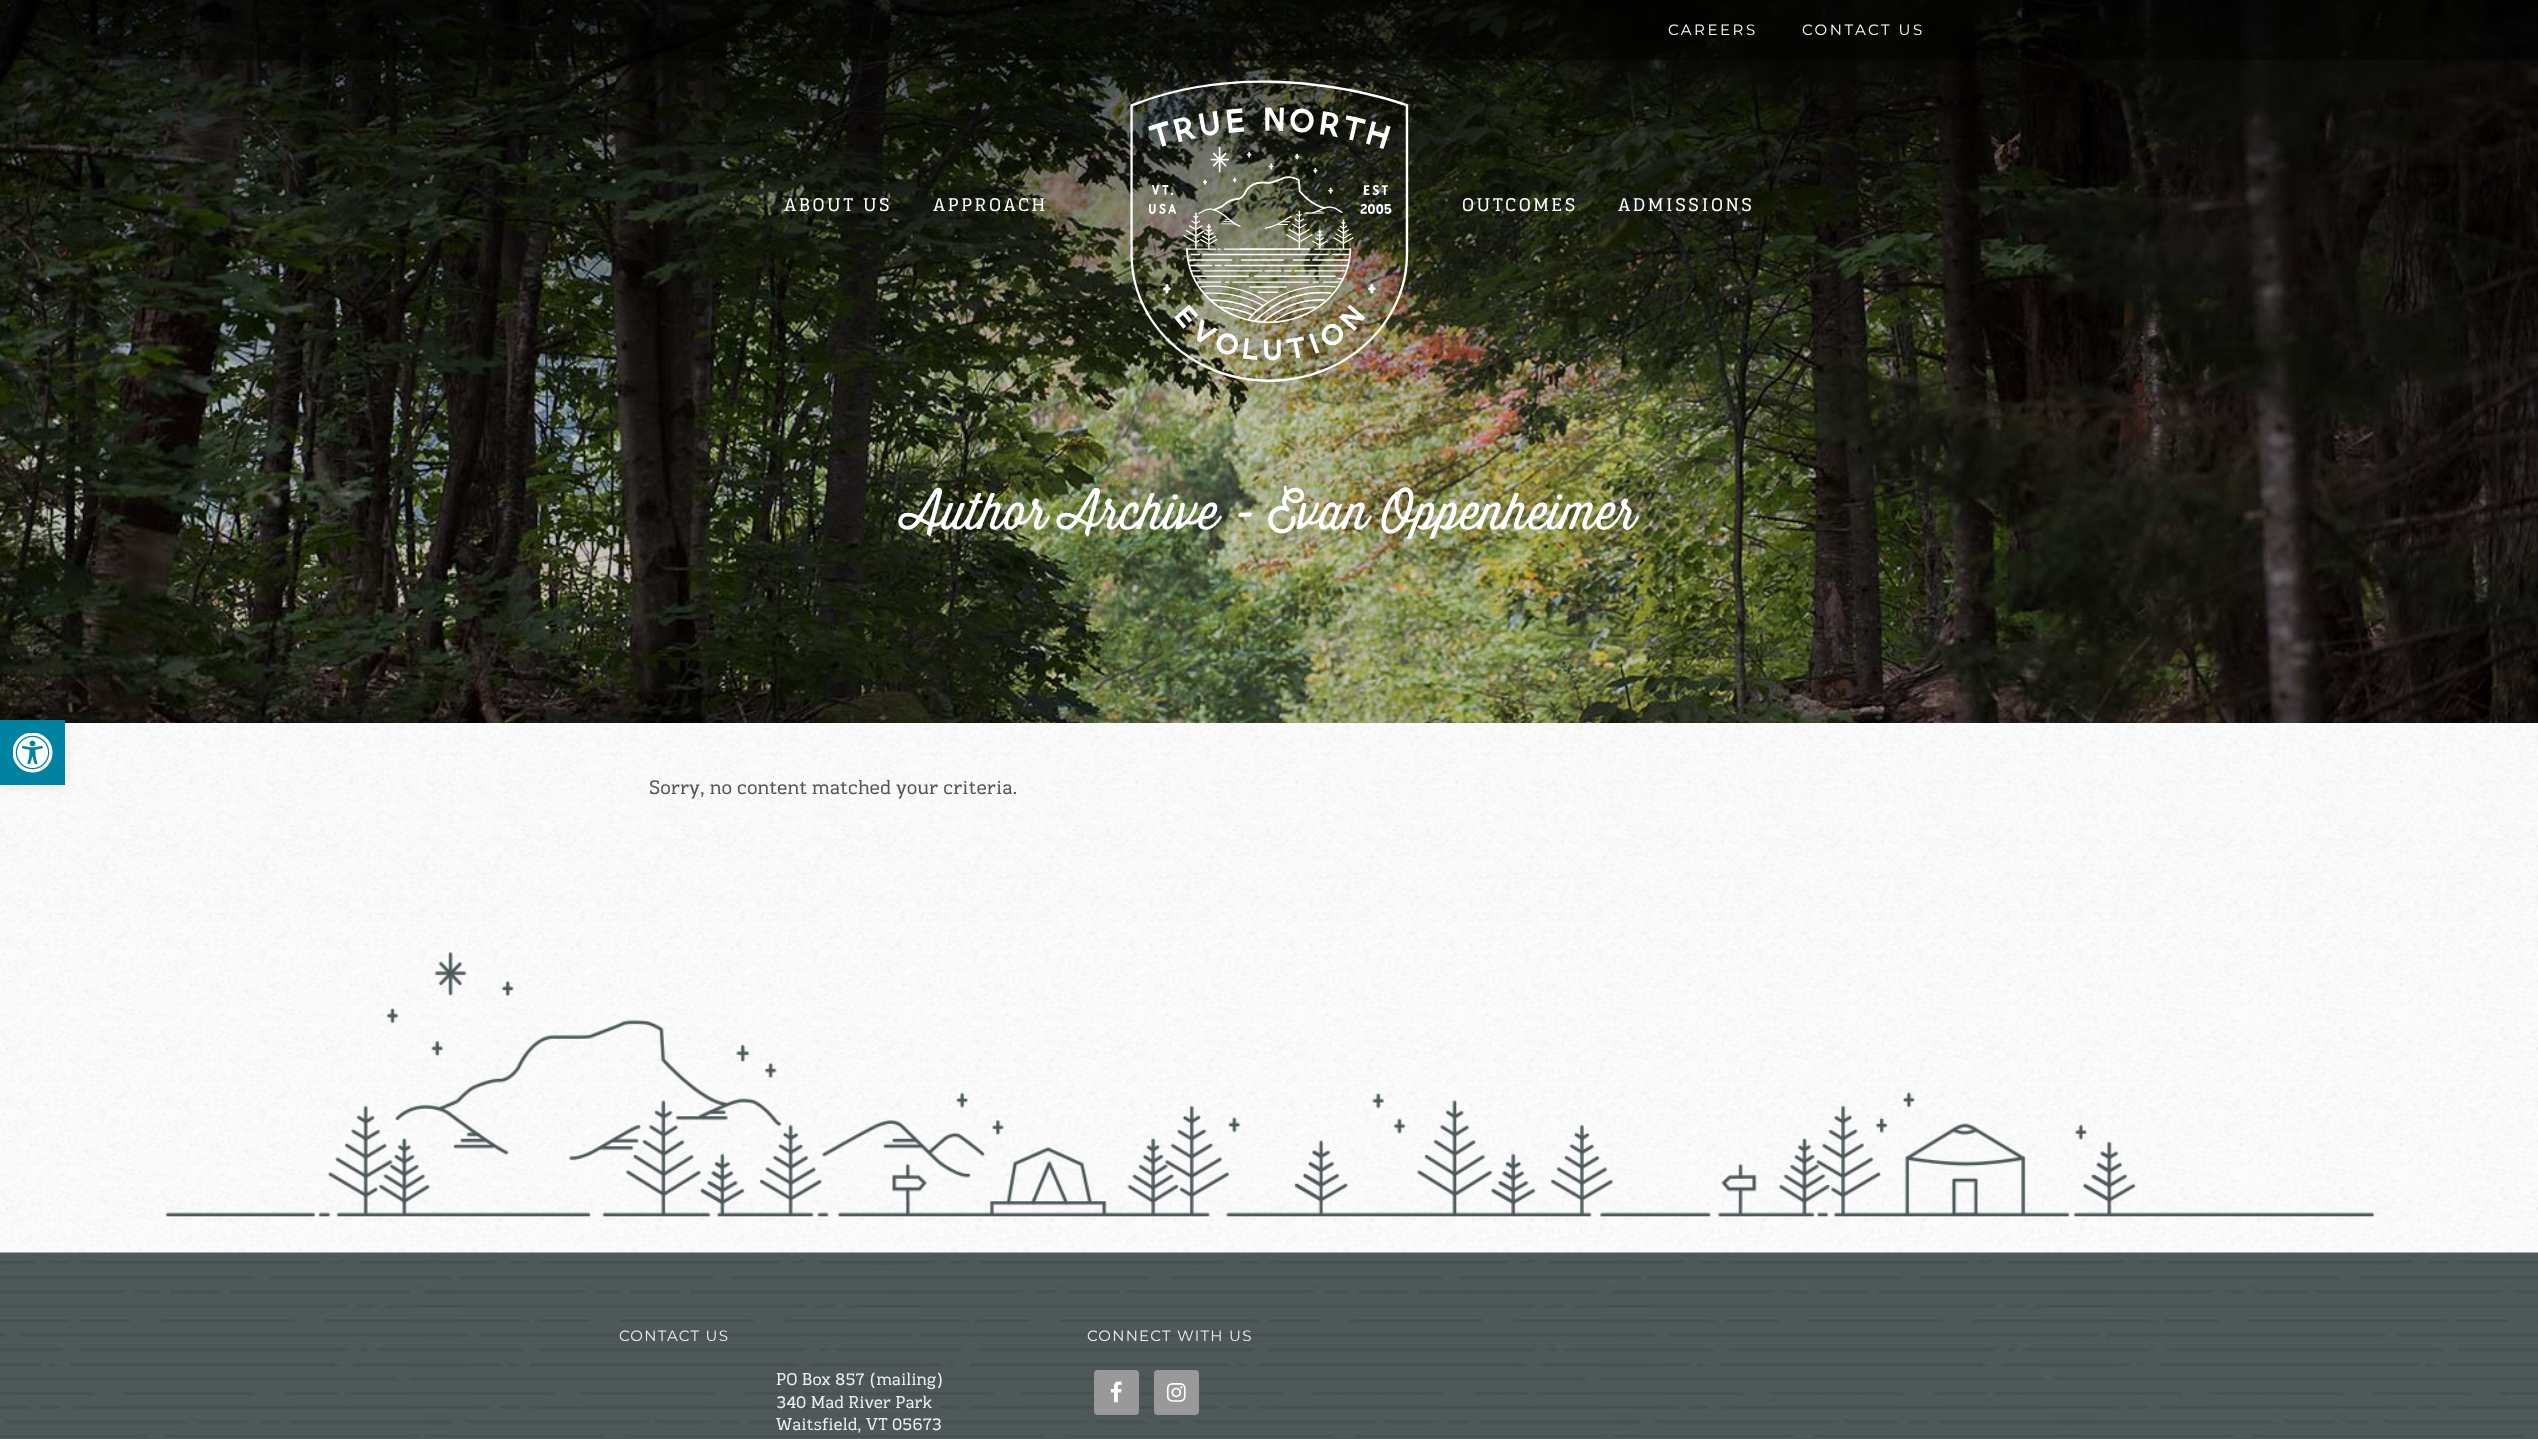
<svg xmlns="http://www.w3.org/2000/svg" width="2538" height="1439">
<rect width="100%" height="100%" fill="#fff"/>
<image x="0" y="723" width="2538" height="192" href="media/1.png"/>
<image x="0" y="0" width="2538" height="723" href="media/2.png"/>
<rect y="720" width="65" height="65" fill="#0000001a" filter="blur(6px)"/>
<rect y="720" width="65" height="65" fill="#0083a3"/>
<image x="13" y="733" width="40" height="40" href="media/3.png"/>
<rect width="2538" height="60" fill="#00000059"/>
<text x="1668" y="35" style="font-family:Montserrat;font-size:15px;letter-spacing:2.5px;fill:#fff">CAREERS</text>
<text x="1802" y="35" style="font-family:Montserrat;font-size:15px;letter-spacing:2.5px;fill:#fff">CONTACT US</text>
<image x="1130" y="80" width="279" height="302" href="media/4.png"/>
<text x="784" y="211" style="font-family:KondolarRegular;font-size:18.75px;letter-spacing:2.5px;fill:#fff">ABOUT US</text>
<text x="933" y="211" style="font-family:KondolarRegular;font-size:18.75px;letter-spacing:2.5px;fill:#fff">APPROACH</text>
<text x="1462" y="211" style="font-family:KondolarRegular;font-size:18.75px;letter-spacing:2.5px;fill:#fff">OUTCOMES</text>
<text x="1618" y="211" style="font-family:KondolarRegular;font-size:18.75px;letter-spacing:2.5px;fill:#fff">ADMISSIONS</text>
<text x="902" y="529" style="font-family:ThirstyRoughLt;font-size:50px;fill:#fff">Author Archive - Evan Oppenheimer</text>
<text x="649" y="794" style="font-family:KondolarRegular;font-size:20px;fill:#555">Sorry, no content matched your criteria.</text>
<rect y="1252" width="2538" height="1" fill="#f8f8f8"/>
<image x="0" y="915" width="2538" height="337" href="media/5.png"/>
<image x="166" y="952" width="2208" height="265" href="media/6.png"/>
<rect y="1438" width="2538" height="1" fill="#4e5859"/>
<image x="0" y="1252" width="2538" height="186" href="media/7.png"/>
<text x="619" y="1341" style="font-family:Montserrat;font-size:15px;letter-spacing:1.25px;fill:#eee">CONTACT US</text>
<text x="1087" y="1341" style="font-family:Montserrat;font-size:15px;letter-spacing:1.25px;fill:#eee">CONNECT WITH US</text>
<rect x="1094" y="1370" width="45" height="45" rx="4" fill="#999"/>
<image x="1110" y="1381" width="12" height="22" href="media/8.png"/>
<rect x="1154" y="1370" width="45" height="45" rx="4" fill="#999"/>
<image x="1166" y="1383" width="20" height="19" href="media/9.png"/>
<text x="776" y="1385" style="font-family:KondolarRegular;font-size:17.5px;fill:#eee">PO Box 857 (mailing)</text>
<text x="776" y="1408" style="font-family:KondolarRegular;font-size:17.5px;fill:#eee">340 Mad River Park</text>
<text x="776" y="1430" style="font-family:KondolarRegular;font-size:17.5px;fill:#eee">Waitsfield, VT 05673</text>
</svg>
